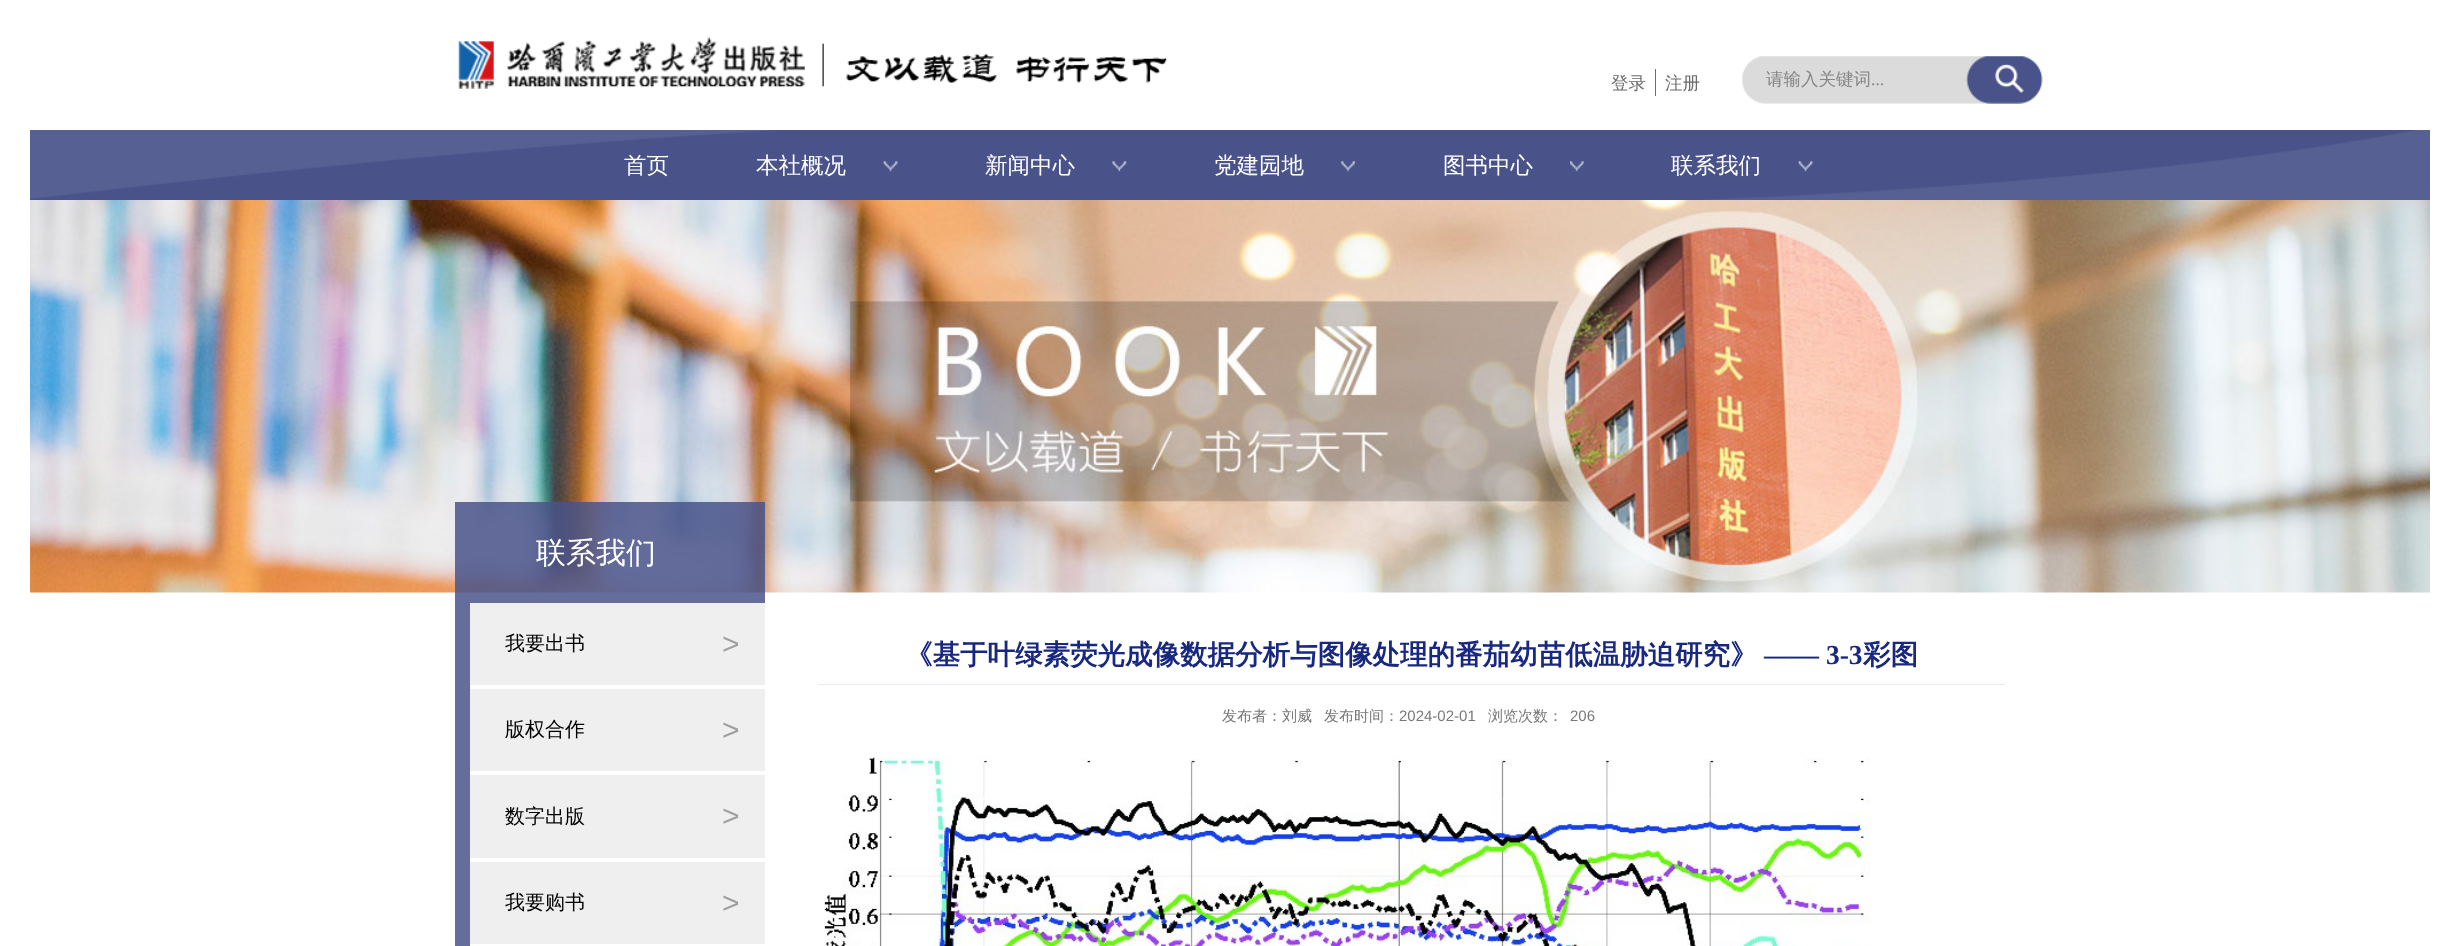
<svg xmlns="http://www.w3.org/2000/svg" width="2459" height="946">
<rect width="100%" height="100%" fill="#fff"/>
<image x="822" y="43" width="345" height="44" href="media/1.png"/>
<image x="458" y="37" width="347" height="52" href="media/2.png"/>
<rect x="1655" y="69" width="1" height="27" fill="#6c6b6b"/>
<text x="1611" y="89" style="font-family:WenQuanYi Zen Hei;font-size:17.5px;font-weight:500;fill:#6c6b6b">登录</text>
<text x="1665" y="89" style="font-family:WenQuanYi Zen Hei;font-size:17.5px;font-weight:500;fill:#6c6b6b">注册</text>
<image x="1742" y="56" width="249" height="48" href="media/3.png"/>
<text x="1766" y="85" style="font-family:WenQuanYi Zen Hei;font-size:17.5px;font-weight:500;fill:#868686">请输入关键词</text>
<text x="1871" y="85" style="font-family:Liberation Serif;font-size:17.5px;fill:#868686">...</text>
<image x="1966" y="56" width="77" height="48" href="media/4.png"/>
<image x="30" y="130" width="2400" height="70" href="media/5.png"/>
<text x="624" y="173" style="font-family:WenQuanYi Zen Hei;font-size:22.5px;font-weight:500;fill:#fff">首页</text>
<text x="756" y="173" style="font-family:WenQuanYi Zen Hei;font-size:22.5px;font-weight:500;fill:#fff">本社概况</text>
<image x="883" y="161" width="15" height="11" href="media/6.png"/>
<text x="985" y="173" style="font-family:WenQuanYi Zen Hei;font-size:22.5px;font-weight:500;fill:#fff">新闻中心</text>
<image x="1112" y="161" width="15" height="11" href="media/7.png"/>
<text x="1214" y="173" style="font-family:WenQuanYi Zen Hei;font-size:22.5px;font-weight:500;fill:#fff">党建园地</text>
<image x="1341" y="161" width="14" height="11" href="media/8.png"/>
<text x="1443" y="173" style="font-family:WenQuanYi Zen Hei;font-size:22.5px;font-weight:500;fill:#fff">图书中心</text>
<image x="1570" y="161" width="14" height="11" href="media/9.png"/>
<text x="1671" y="173" style="font-family:WenQuanYi Zen Hei;font-size:22.5px;font-weight:500;fill:#fff">联系我们</text>
<image x="1798" y="161" width="15" height="11" href="media/10.png"/>
<image x="30" y="200" width="2400" height="393" href="media/11.png"/>
<rect x="455" y="502" width="310" height="444" fill="#495389d9"/>
<text x="536" y="563" style="font-family:WenQuanYi Zen Hei;font-size:30px;font-weight:500;fill:#fff">联系我们</text>
<rect x="470" y="603" width="295" height="341" fill="#efefef"/>
<rect x="470" y="685" width="295" height="4" fill="#fff"/>
<text x="505" y="650" style="font-family:WenQuanYi Zen Hei;font-size:20px;font-weight:500;fill:#000">我要出书</text>
<text x="722" y="654" style="font-family:Liberation Sans;font-size:30px;fill:#9f9f9f">&gt;</text>
<rect x="470" y="771" width="295" height="4" fill="#fff"/>
<text x="505" y="736" style="font-family:WenQuanYi Zen Hei;font-size:20px;font-weight:500;fill:#000">版权合作</text>
<text x="722" y="740" style="font-family:Liberation Sans;font-size:30px;fill:#9f9f9f">&gt;</text>
<rect x="470" y="858" width="295" height="4" fill="#fff"/>
<text x="505" y="823" style="font-family:WenQuanYi Zen Hei;font-size:20px;font-weight:500;fill:#000">数字出版</text>
<text x="722" y="826" style="font-family:Liberation Sans;font-size:30px;fill:#9f9f9f">&gt;</text>
<rect x="470" y="944" width="295" height="2" fill="#fff"/>
<text x="505" y="909" style="font-family:WenQuanYi Zen Hei;font-size:20px;font-weight:500;fill:#000">我要购书</text>
<text x="722" y="913" style="font-family:Liberation Sans;font-size:30px;fill:#9f9f9f">&gt;</text>
<text x="905" y="664" style="font-family:WenQuanYi Zen Hei;font-size:27.5px;font-weight:bold;fill:#182880">《基于叶绿素荧光成像数据分析与图像处理的番茄幼苗低温胁迫研究》</text>
<text x="1764" y="664" style="font-family:Liberation Serif;font-size:27.5px;font-weight:bold;fill:#182880">—— 3-3</text>
<text x="1863" y="664" style="font-family:WenQuanYi Zen Hei;font-size:27.5px;font-weight:bold;fill:#182880">彩图</text>
<rect x="818" y="684" width="1187" height="1" fill="#ececec"/>
<text x="1222" y="721" style="font-family:WenQuanYi Zen Hei;font-size:15px;font-weight:500;fill:#787878">发布者：刘威</text>
<text x="1324" y="721" style="font-family:WenQuanYi Zen Hei;font-size:15px;font-weight:500;fill:#787878">发布时间：</text>
<text x="1399" y="721" style="font-family:Liberation Sans;font-size:15px;fill:#787878">2024-02-01</text>
<text x="1488" y="721" style="font-family:WenQuanYi Zen Hei;font-size:15px;font-weight:500;fill:#787878">浏览次数：</text>
<text x="1570" y="721" style="font-family:Liberation Sans;font-size:15px;fill:#787878">206</text>
<image x="824" y="757" width="1047" height="189" href="media/12.png"/>
</svg>
